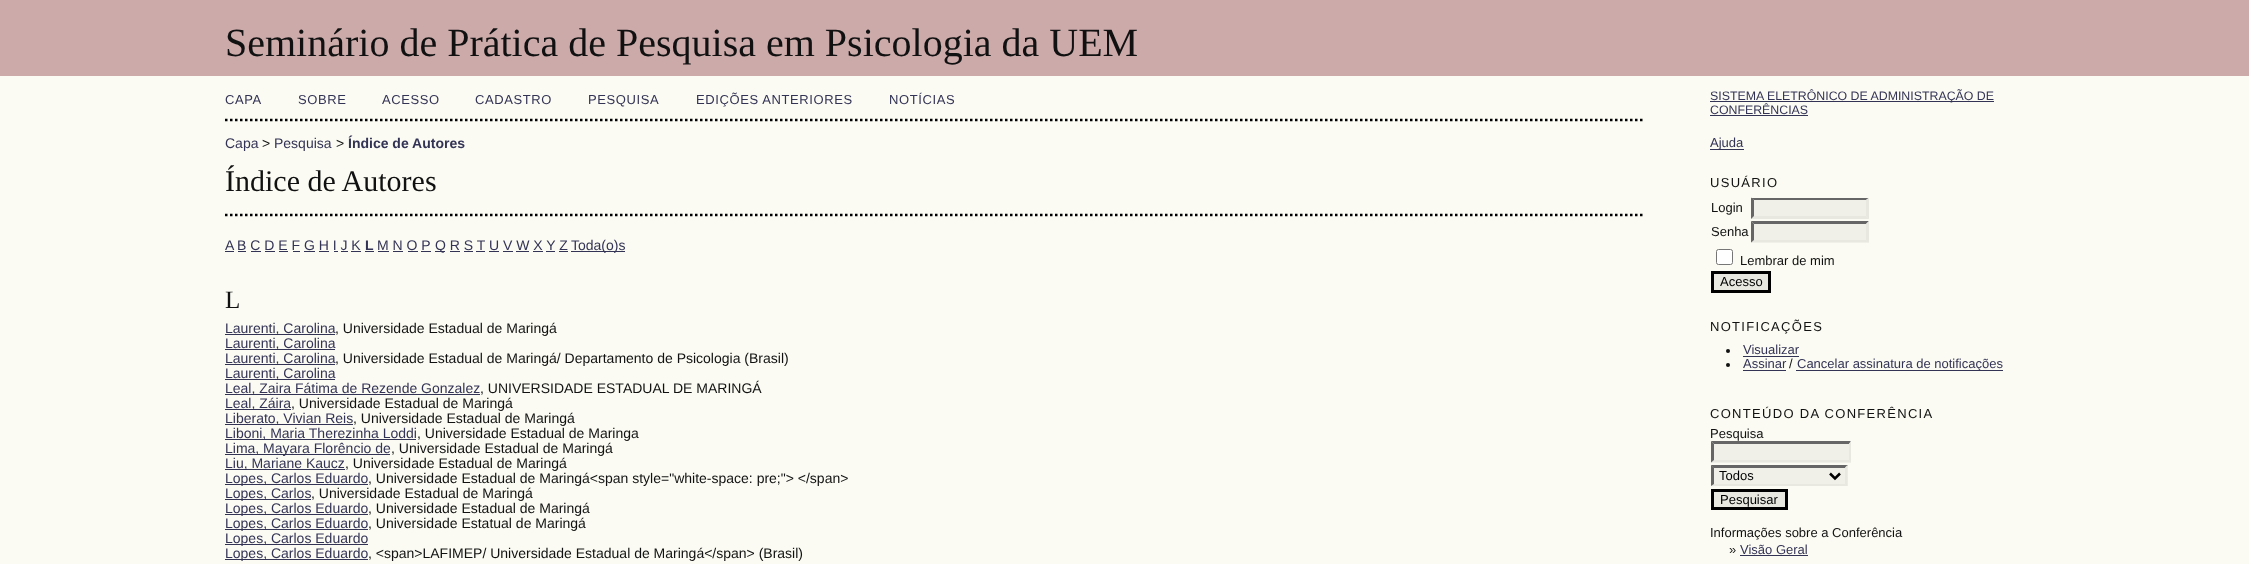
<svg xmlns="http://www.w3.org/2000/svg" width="2249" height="564">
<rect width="100%" height="100%" fill="#fbfbf3"/>
<rect width="2249" height="76" fill="#caa"/>
<text x="225" y="56" style="font-family:Liberation Serif;font-size:40px;fill:#111">Seminário de Prática de Pesquisa em Psicologia da UEM</text>
<path d="M225 120h1417.5" fill="none" stroke="#000" stroke-width="2.5" stroke-dasharray="2.5 2.5"/>
<text x="225" y="104" style="font-family:Liberation Sans;font-size:13px;letter-spacing:0.6px;fill:#335">CAPA</text>
<text x="298" y="104" style="font-family:Liberation Sans;font-size:13px;letter-spacing:0.6px;fill:#335">SOBRE</text>
<text x="382" y="104" style="font-family:Liberation Sans;font-size:13px;letter-spacing:0.6px;fill:#335">ACESSO</text>
<text x="475" y="104" style="font-family:Liberation Sans;font-size:13px;letter-spacing:0.6px;fill:#335">CADASTRO</text>
<text x="588" y="104" style="font-family:Liberation Sans;font-size:13px;letter-spacing:0.6px;fill:#335">PESQUISA</text>
<text x="696" y="104" style="font-family:Liberation Sans;font-size:13px;letter-spacing:0.6px;fill:#335">EDIÇÕES ANTERIORES</text>
<text x="889" y="104" style="font-family:Liberation Sans;font-size:13px;letter-spacing:0.6px;fill:#335">NOTÍCIAS</text>
<text x="225" y="148" style="font-family:Liberation Sans;font-size:14px;fill:#335">Capa</text>
<text x="262" y="148" style="font-family:Liberation Sans;font-size:14px;fill:#111">&gt;</text>
<text x="274" y="148" style="font-family:Liberation Sans;font-size:14px;fill:#335">Pesquisa</text>
<text x="336" y="148" style="font-family:Liberation Sans;font-size:14px;fill:#111">&gt;</text>
<text x="348" y="148" style="font-family:Liberation Sans;font-size:14px;font-weight:bold;fill:#335">Índice de Autores</text>
<text x="225" y="191" style="font-family:Liberation Serif;font-size:30px;fill:#111">Índice de Autores</text>
<path d="M225 215h1417.5" fill="none" stroke="#000" stroke-width="2.5" stroke-dasharray="2.5 2.5"/>
<text x="225" y="250" style="font-family:Liberation Sans;font-size:14px;fill:#335">A</text>
<rect x="225" y="251" width="9" height="1" fill="#335"/>
<text x="237" y="250" style="font-family:Liberation Sans;font-size:14px;fill:#335">B C D E F G H I J K</text>
<rect x="238" y="251" width="8" height="1" fill="#335"/>
<text x="365" y="250" style="font-family:Liberation Sans;font-size:14px;font-weight:bold;fill:#335">L</text>
<rect x="365" y="251" width="9" height="1" fill="#335"/>
<text x="377" y="250" style="font-family:Liberation Sans;font-size:14px;fill:#335">M N O P</text>
<rect x="378" y="251" width="11" height="1" fill="#335"/>
<rect x="435" y="251" width="10" height="1" fill="#335"/>
<text x="435" y="250" style="font-family:Liberation Sans;font-size:14px;fill:#335">Q R S T U V W X Y Z</text>
<rect x="571" y="251" width="54" height="1" fill="#335"/>
<text x="571" y="250" style="font-family:Liberation Sans;font-size:14px;fill:#335">Toda(o)s</text>
<rect x="251" y="251" width="10" height="1" fill="#335"/>
<rect x="265" y="251" width="10" height="1" fill="#335"/>
<rect x="279" y="251" width="9" height="1" fill="#335"/>
<rect x="293" y="251" width="7" height="1" fill="#335"/>
<rect x="304" y="251" width="11" height="1" fill="#335"/>
<rect x="319" y="251" width="10" height="1" fill="#335"/>
<rect x="334" y="251" width="4" height="1" fill="#335"/>
<rect x="341" y="251" width="7" height="1" fill="#335"/>
<rect x="351" y="251" width="10" height="1" fill="#335"/>
<rect x="393" y="251" width="10" height="1" fill="#335"/>
<rect x="408" y="251" width="10" height="1" fill="#335"/>
<rect x="421" y="251" width="10" height="1" fill="#335"/>
<rect x="450" y="251" width="10" height="1" fill="#335"/>
<rect x="464" y="251" width="9" height="1" fill="#335"/>
<rect x="476" y="251" width="9" height="1" fill="#335"/>
<rect x="489" y="251" width="10" height="1" fill="#335"/>
<rect x="503" y="251" width="10" height="1" fill="#335"/>
<rect x="516" y="251" width="13" height="1" fill="#335"/>
<rect x="533" y="251" width="10" height="1" fill="#335"/>
<rect x="546" y="251" width="9" height="1" fill="#335"/>
<rect x="559" y="251" width="9" height="1" fill="#335"/>
<text x="225" y="308" style="font-family:Liberation Serif;font-size:25px;fill:#111">L</text>
<rect x="225" y="334" width="110" height="1" fill="#335"/>
<text x="225" y="333" style="font-family:Liberation Sans;font-size:14px;fill:#335">Laurenti, Carolina</text>
<text x="335" y="333" style="font-family:Liberation Sans;font-size:14px;fill:#111">, Universidade Estadual de Maringá</text>
<rect x="225" y="349" width="110" height="1" fill="#335"/>
<text x="225" y="348" style="font-family:Liberation Sans;font-size:14px;fill:#335">Laurenti, Carolina</text>
<rect x="225" y="364" width="110" height="1" fill="#335"/>
<text x="225" y="363" style="font-family:Liberation Sans;font-size:14px;fill:#335">Laurenti, Carolina</text>
<text x="335" y="363" style="font-family:Liberation Sans;font-size:14px;fill:#111">, Universidade Estadual de Maringá/ Departamento de Psicologia (Brasil)</text>
<rect x="225" y="379" width="110" height="1" fill="#335"/>
<text x="225" y="378" style="font-family:Liberation Sans;font-size:14px;fill:#335">Laurenti, Carolina</text>
<rect x="225" y="394" width="255" height="1" fill="#335"/>
<text x="225" y="393" style="font-family:Liberation Sans;font-size:14px;fill:#335">Leal, Zaira Fátima de Rezende Gonzalez</text>
<text x="480" y="393" style="font-family:Liberation Sans;font-size:14px;fill:#111">, UNIVERSIDADE ESTADUAL DE MARINGÁ</text>
<rect x="225" y="409" width="66" height="1" fill="#335"/>
<text x="225" y="408" style="font-family:Liberation Sans;font-size:14px;fill:#335">Leal, Záira</text>
<text x="291" y="408" style="font-family:Liberation Sans;font-size:14px;fill:#111">, Universidade Estadual de Maringá</text>
<rect x="225" y="424" width="128" height="1" fill="#335"/>
<text x="225" y="423" style="font-family:Liberation Sans;font-size:14px;fill:#335">Liberato, Vivian Reis</text>
<text x="353" y="423" style="font-family:Liberation Sans;font-size:14px;fill:#111">, Universidade Estadual de Maringá</text>
<rect x="225" y="439" width="191" height="1" fill="#335"/>
<text x="225" y="438" style="font-family:Liberation Sans;font-size:14px;fill:#335">Liboni, Maria Therezinha Loddi</text>
<text x="417" y="438" style="font-family:Liberation Sans;font-size:14px;fill:#111">, Universidade Estadual de Maringa</text>
<rect x="225" y="454" width="165" height="1" fill="#335"/>
<text x="225" y="453" style="font-family:Liberation Sans;font-size:14px;fill:#335">Lima, Mayara Florêncio de</text>
<text x="391" y="453" style="font-family:Liberation Sans;font-size:14px;fill:#111">, Universidade Estadual de Maringá</text>
<rect x="225" y="469" width="120" height="1" fill="#335"/>
<text x="225" y="468" style="font-family:Liberation Sans;font-size:14px;fill:#335">Liu, Mariane Kaucz</text>
<text x="345" y="468" style="font-family:Liberation Sans;font-size:14px;fill:#111">, Universidade Estadual de Maringá</text>
<rect x="225" y="484" width="143" height="1" fill="#335"/>
<text x="225" y="483" style="font-family:Liberation Sans;font-size:14px;fill:#335">Lopes, Carlos Eduardo</text>
<text x="368" y="483" style="font-family:Liberation Sans;font-size:14px;fill:#111">, Universidade Estadual de Maringá&lt;span style="white-space: pre;"&gt; &lt;/span&gt;</text>
<rect x="225" y="499" width="86" height="1" fill="#335"/>
<text x="225" y="498" style="font-family:Liberation Sans;font-size:14px;fill:#335">Lopes, Carlos</text>
<text x="311" y="498" style="font-family:Liberation Sans;font-size:14px;fill:#111">, Universidade Estadual de Maringá</text>
<rect x="225" y="514" width="143" height="1" fill="#335"/>
<text x="225" y="513" style="font-family:Liberation Sans;font-size:14px;fill:#335">Lopes, Carlos Eduardo</text>
<text x="368" y="513" style="font-family:Liberation Sans;font-size:14px;fill:#111">, Universidade Estadual de Maringá</text>
<rect x="225" y="529" width="143" height="1" fill="#335"/>
<text x="225" y="528" style="font-family:Liberation Sans;font-size:14px;fill:#335">Lopes, Carlos Eduardo</text>
<text x="368" y="528" style="font-family:Liberation Sans;font-size:14px;fill:#111">, Universidade Estatual de Maringá</text>
<rect x="225" y="544" width="143" height="1" fill="#335"/>
<text x="225" y="543" style="font-family:Liberation Sans;font-size:14px;fill:#335">Lopes, Carlos Eduardo</text>
<rect x="225" y="559" width="143" height="1" fill="#335"/>
<text x="225" y="558" style="font-family:Liberation Sans;font-size:14px;fill:#335">Lopes, Carlos Eduardo</text>
<text x="368" y="558" style="font-family:Liberation Sans;font-size:14px;fill:#111">, &lt;span&gt;LAFIMEP/ Universidade Estadual de Maringá&lt;/span&gt; (Brasil)</text>
<rect x="1710" y="101" width="284" height="1" fill="#335"/>
<text x="1710" y="100" style="font-family:Liberation Sans;font-size:12.35px;fill:#335">SISTEMA ELETRÔNICO DE ADMINISTRAÇÃO DE</text>
<text x="1710" y="114" style="font-family:Liberation Sans;font-size:12.35px;fill:#335">CONFERÊNCIAS</text>
<rect x="1710" y="115" width="98" height="1" fill="#335"/>
<rect x="1710" y="149" width="34" height="1" fill="#335"/>
<text x="1710" y="147" style="font-family:Liberation Sans;font-size:13px;fill:#335">Ajuda</text>
<text x="1710" y="187" style="font-family:Liberation Sans;font-size:13px;letter-spacing:1.3px;fill:#111">USUÁRIO</text>
<text x="1711" y="212" style="font-family:Liberation Sans;font-size:13px;fill:#111">Login</text>
<rect x="1751" y="198" width="118" height="21" fill="#f0f0e8"/>
<path d="M1751 198h118l-3 2h-112z" fill="#666"/>
<path d="M1869 197.5v21.5l-3-3v-16z" fill="#e8e8e1"/>
<path d="M1869 219h-118l3-3h112z" fill="#e8e8e1"/>
<path d="M1751 219v-21.5l3 2.5v16z" fill="#666"/>
<text x="1711" y="236" style="font-family:Liberation Sans;font-size:13px;fill:#111">Senha</text>
<rect x="1751" y="221" width="118" height="22" fill="#f0f0e8"/>
<path d="M1751 221h118l-3 3h-112z" fill="#666"/>
<path d="M1869 221v21.5l-3-2.5v-16z" fill="#e8e8e1"/>
<path d="M1869 242h-118l3-2h112z" fill="#e8e8e1"/>
<path d="M1751 242.5v-21.5l3 3v16z" fill="#666"/>
<rect x="1716.5" y="249.5" width="16" height="15" rx="2" fill="#fff" stroke="#767676"/>
<text x="1740" y="265" style="font-family:Liberation Sans;font-size:13px;fill:#111">Lembrar de mim</text>
<rect x="1712.5" y="272.5" width="57" height="19" fill="#e8e8e1" stroke="#000" stroke-width="3"/>
<text x="1720" y="286" style="font-family:Liberation Sans;font-size:13px;fill:#000">Acesso</text>
<text x="1710" y="331" style="font-family:Liberation Sans;font-size:13px;letter-spacing:1.3px;fill:#111">NOTIFICAÇÕES</text>
<circle cx="1728" cy="351" r="2" fill="#111"/>
<text x="1743" y="354" style="font-family:Liberation Sans;font-size:13px;fill:#335">Visualizar</text>
<rect x="1743" y="356" width="56" height="1" fill="#335"/>
<circle cx="1728" cy="365" r="2" fill="#111"/>
<text x="1743" y="368" style="font-family:Liberation Sans;font-size:13px;fill:#335">Assinar</text>
<rect x="1743" y="370" width="43" height="1" fill="#335"/>
<text x="1789" y="368" style="font-family:Liberation Sans;font-size:13px;fill:#111">/</text>
<rect x="1796" y="370" width="207" height="1" fill="#335"/>
<text x="1797" y="368" style="font-family:Liberation Sans;font-size:13px;fill:#335">Cancelar assinatura de notificações</text>
<text x="1710" y="418" style="font-family:Liberation Sans;font-size:13px;letter-spacing:1.3px;fill:#111">CONTEÚDO DA CONFERÊNCIA</text>
<text x="1710" y="438" style="font-family:Liberation Sans;font-size:13px;fill:#111">Pesquisa</text>
<rect x="1711" y="441" width="140" height="22" fill="#f0f0e8"/>
<path d="M1711 441h140l-2 3h-135z" fill="#666"/>
<path d="M1851 441v21.5l-2-2.5v-16z" fill="#e8e8e1"/>
<path d="M1851 462h-140l3-2h135z" fill="#e8e8e1"/>
<path d="M1711 462.5v-21.5l3 3v16z" fill="#666"/>
<rect x="1711" y="465" width="137" height="21" fill="#f0f0e8"/>
<path d="M1711 465h137l-3 3h-131z" fill="#666"/>
<path d="M1847.5 465v21l-2.5-2v-16.5z" fill="#e8e8e1"/>
<path d="M1848 486h-137l3-2h131z" fill="#e8e8e1"/>
<path d="M1711 486v-21l3 2.5v16.5z" fill="#666"/>
<path d="M1830 473.5l5 5l5-5" fill="none" stroke="#000" stroke-width="2.5"/>
<text x="1719" y="480" style="font-family:Liberation Sans;font-size:13px;fill:#000">Todos</text>
<rect x="1712.5" y="490.5" width="74" height="18" fill="#e8e8e1" stroke="#000" stroke-width="3"/>
<text x="1720" y="504" style="font-family:Liberation Sans;font-size:13px;fill:#000">Pesquisar</text>
<text x="1710" y="537" style="font-family:Liberation Sans;font-size:13px;fill:#111">Informações sobre a Conferência</text>
<text x="1729" y="554" style="font-family:Liberation Sans;font-size:13px;fill:#111">»</text>
<text x="1740" y="554" style="font-family:Liberation Sans;font-size:13px;fill:#335">Visão Geral</text>
<rect x="1740" y="555" width="68" height="1" fill="#335"/>
</svg>
